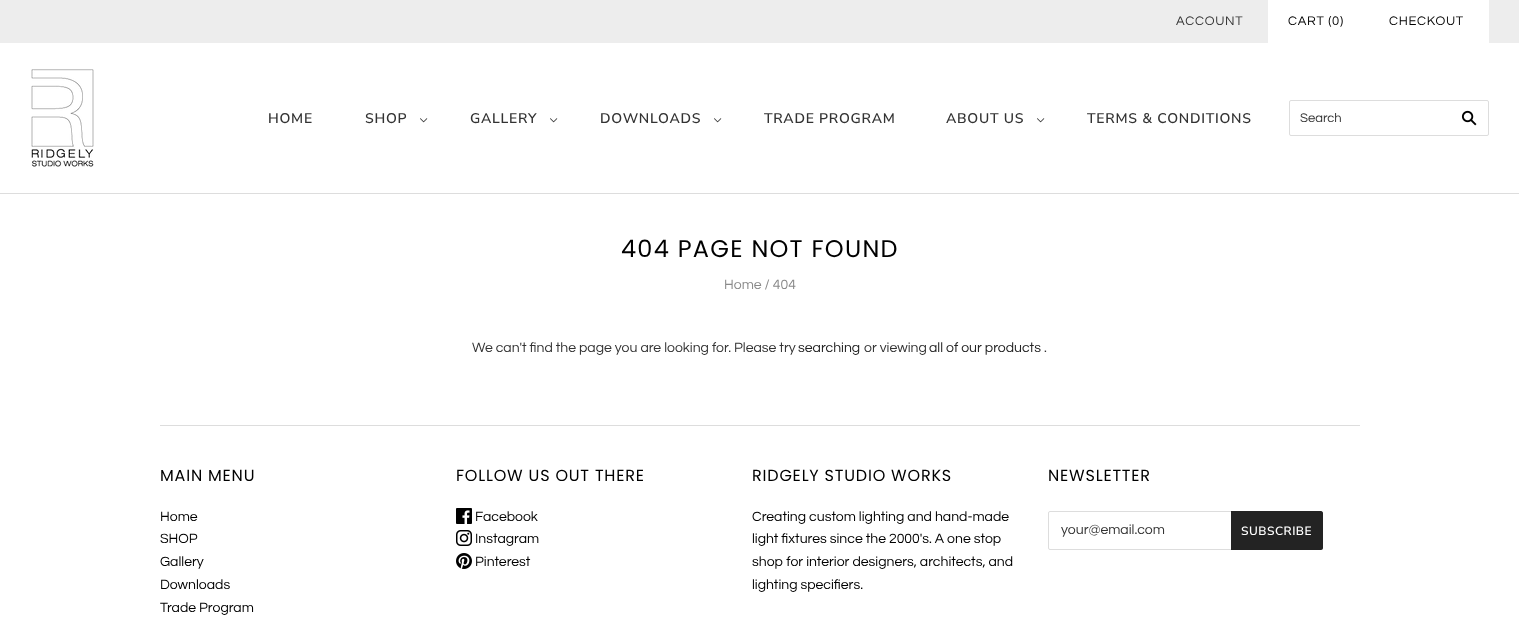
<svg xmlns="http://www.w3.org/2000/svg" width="1519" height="619">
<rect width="100%" height="100%" fill="#fff"/>
<rect y="193" width="1519" height="1" fill="#ddd"/>
<rect width="1519" height="43" fill="#ededed"/>
<text x="1176" y="25" style="font-family:Questrial;font-size:13px;letter-spacing:0.75px;fill:#333">ACCOUNT</text>
<rect x="1268" width="221" height="43" fill="#fff"/>
<text x="1288" y="25" style="font-family:Questrial;font-size:13px;letter-spacing:0.75px;fill:#000">CART (0)</text>
<text x="1389" y="25" style="font-family:Questrial;font-size:13px;letter-spacing:0.75px;fill:#000">CHECKOUT</text>
<image x="31" y="69" width="63" height="98" href="media/1.png"/>
<text x="268" y="123" style="font-family:Nunito Sans;font-size:14px;font-weight:600;letter-spacing:0.75px;fill:#333">HOME</text>
<text x="365" y="123" style="font-family:Nunito Sans;font-size:14px;font-weight:600;letter-spacing:0.75px;fill:#333">SHOP</text>
<image x="420" y="118" width="8" height="5" href="media/2.png"/>
<text x="470" y="123" style="font-family:Nunito Sans;font-size:14px;font-weight:600;letter-spacing:0.75px;fill:#333">GALLERY</text>
<image x="550" y="118" width="8" height="5" href="media/2.png"/>
<text x="600" y="123" style="font-family:Nunito Sans;font-size:14px;font-weight:600;letter-spacing:0.75px;fill:#333">DOWNLOADS</text>
<image x="714" y="118" width="8" height="5" href="media/2.png"/>
<text x="764" y="123" style="font-family:Nunito Sans;font-size:14px;font-weight:600;letter-spacing:0.75px;fill:#333">TRADE PROGRAM</text>
<text x="946" y="123" style="font-family:Nunito Sans;font-size:14px;font-weight:600;letter-spacing:0.75px;fill:#333">ABOUT US</text>
<image x="1037" y="118" width="8" height="5" href="media/2.png"/>
<text x="1087" y="123" style="font-family:Nunito Sans;font-size:14px;font-weight:600;letter-spacing:0.75px;fill:#333">TERMS &amp; CONDITIONS</text>
<rect x="1289.5" y="100.5" width="199" height="35" rx="1.5" fill="none" stroke="#ddd"/>
<text x="1300" y="122" style="font-family:Questrial;font-size:13px;fill:#333">Search</text>
<image x="1461" y="110" width="16" height="16" href="media/3.png"/>
<text x="621" y="257" style="font-family:Poppins;font-size:24px;letter-spacing:1.25px;fill:#000">404 PAGE NOT FOUND</text>
<text x="724" y="289" style="font-family:Questrial;font-size:14px;fill:#8a8a8a">Home / 404</text>
<text x="472" y="352" style="font-family:Questrial;font-size:14px;fill:#333">We can't find the page you are looking for. Please try</text>
<text x="798" y="352" style="font-family:Questrial;font-size:14px;fill:#232323">searching</text>
<text x="864" y="352" style="font-family:Questrial;font-size:14px;fill:#333">or viewing</text>
<text x="929" y="352" style="font-family:Questrial;font-size:14px;fill:#232323">all of our products</text>
<text x="1044" y="352" style="font-family:Questrial;font-size:14px;fill:#333">.</text>
<rect x="160" y="425" width="1200" height="1" fill="#ddd"/>
<text x="160" y="481" style="font-family:Poppins;font-size:16px;letter-spacing:0.8px;fill:#000">MAIN MENU</text>
<text x="160" y="521" style="font-family:Questrial;font-size:14px;fill:#000">Home</text>
<text x="160" y="543" style="font-family:Questrial;font-size:14px;fill:#000">SHOP</text>
<text x="160" y="566" style="font-family:Questrial;font-size:14px;fill:#000">Gallery</text>
<text x="160" y="589" style="font-family:Questrial;font-size:14px;fill:#000">Downloads</text>
<text x="160" y="612" style="font-family:Questrial;font-size:14px;fill:#000">Trade Program</text>
<text x="456" y="481" style="font-family:Poppins;font-size:16px;letter-spacing:0.8px;fill:#000">FOLLOW US OUT THERE</text>
<image x="456" y="508" width="16" height="16" href="media/4.png"/>
<text x="475" y="521" style="font-family:Questrial;font-size:14px;fill:#000">Facebook</text>
<image x="456" y="530" width="16" height="16" href="media/5.png"/>
<text x="475" y="543" style="font-family:Questrial;font-size:14px;fill:#000">Instagram</text>
<image x="456" y="553" width="16" height="16" href="media/6.png"/>
<text x="475" y="566" style="font-family:Questrial;font-size:14px;fill:#000">Pinterest</text>
<text x="752" y="481" style="font-family:Poppins;font-size:16px;letter-spacing:0.8px;fill:#000">RIDGELY STUDIO WORKS</text>
<text x="752" y="521" style="font-family:Questrial;font-size:14px;fill:#000">Creating custom lighting and hand-made</text>
<text x="752" y="543" style="font-family:Questrial;font-size:14px;fill:#000">light fixtures since the 2000's. A one stop</text>
<text x="752" y="566" style="font-family:Questrial;font-size:14px;fill:#000">shop for interior designers, architects, and</text>
<text x="752" y="589" style="font-family:Questrial;font-size:14px;fill:#000">lighting specifiers.</text>
<text x="1048" y="481" style="font-family:Poppins;font-size:16px;letter-spacing:0.8px;fill:#000">NEWSLETTER</text>
<rect x="1048.5" y="511.5" width="274" height="38" rx="1.5" fill="none" stroke="#ddd"/>
<text x="1061" y="534" style="font-family:Questrial;font-size:14px;fill:#333">your@email.com</text>
<path d="M1231 511h90c1 0 2 1 2 2v35c0 1-1 2-2 2h-90z" fill="#232323"/>
<text x="1241" y="535" style="font-family:Nunito Sans;font-size:12px;font-weight:600;letter-spacing:0.5px;fill:#fff">SUBSCRIBE</text>
</svg>
